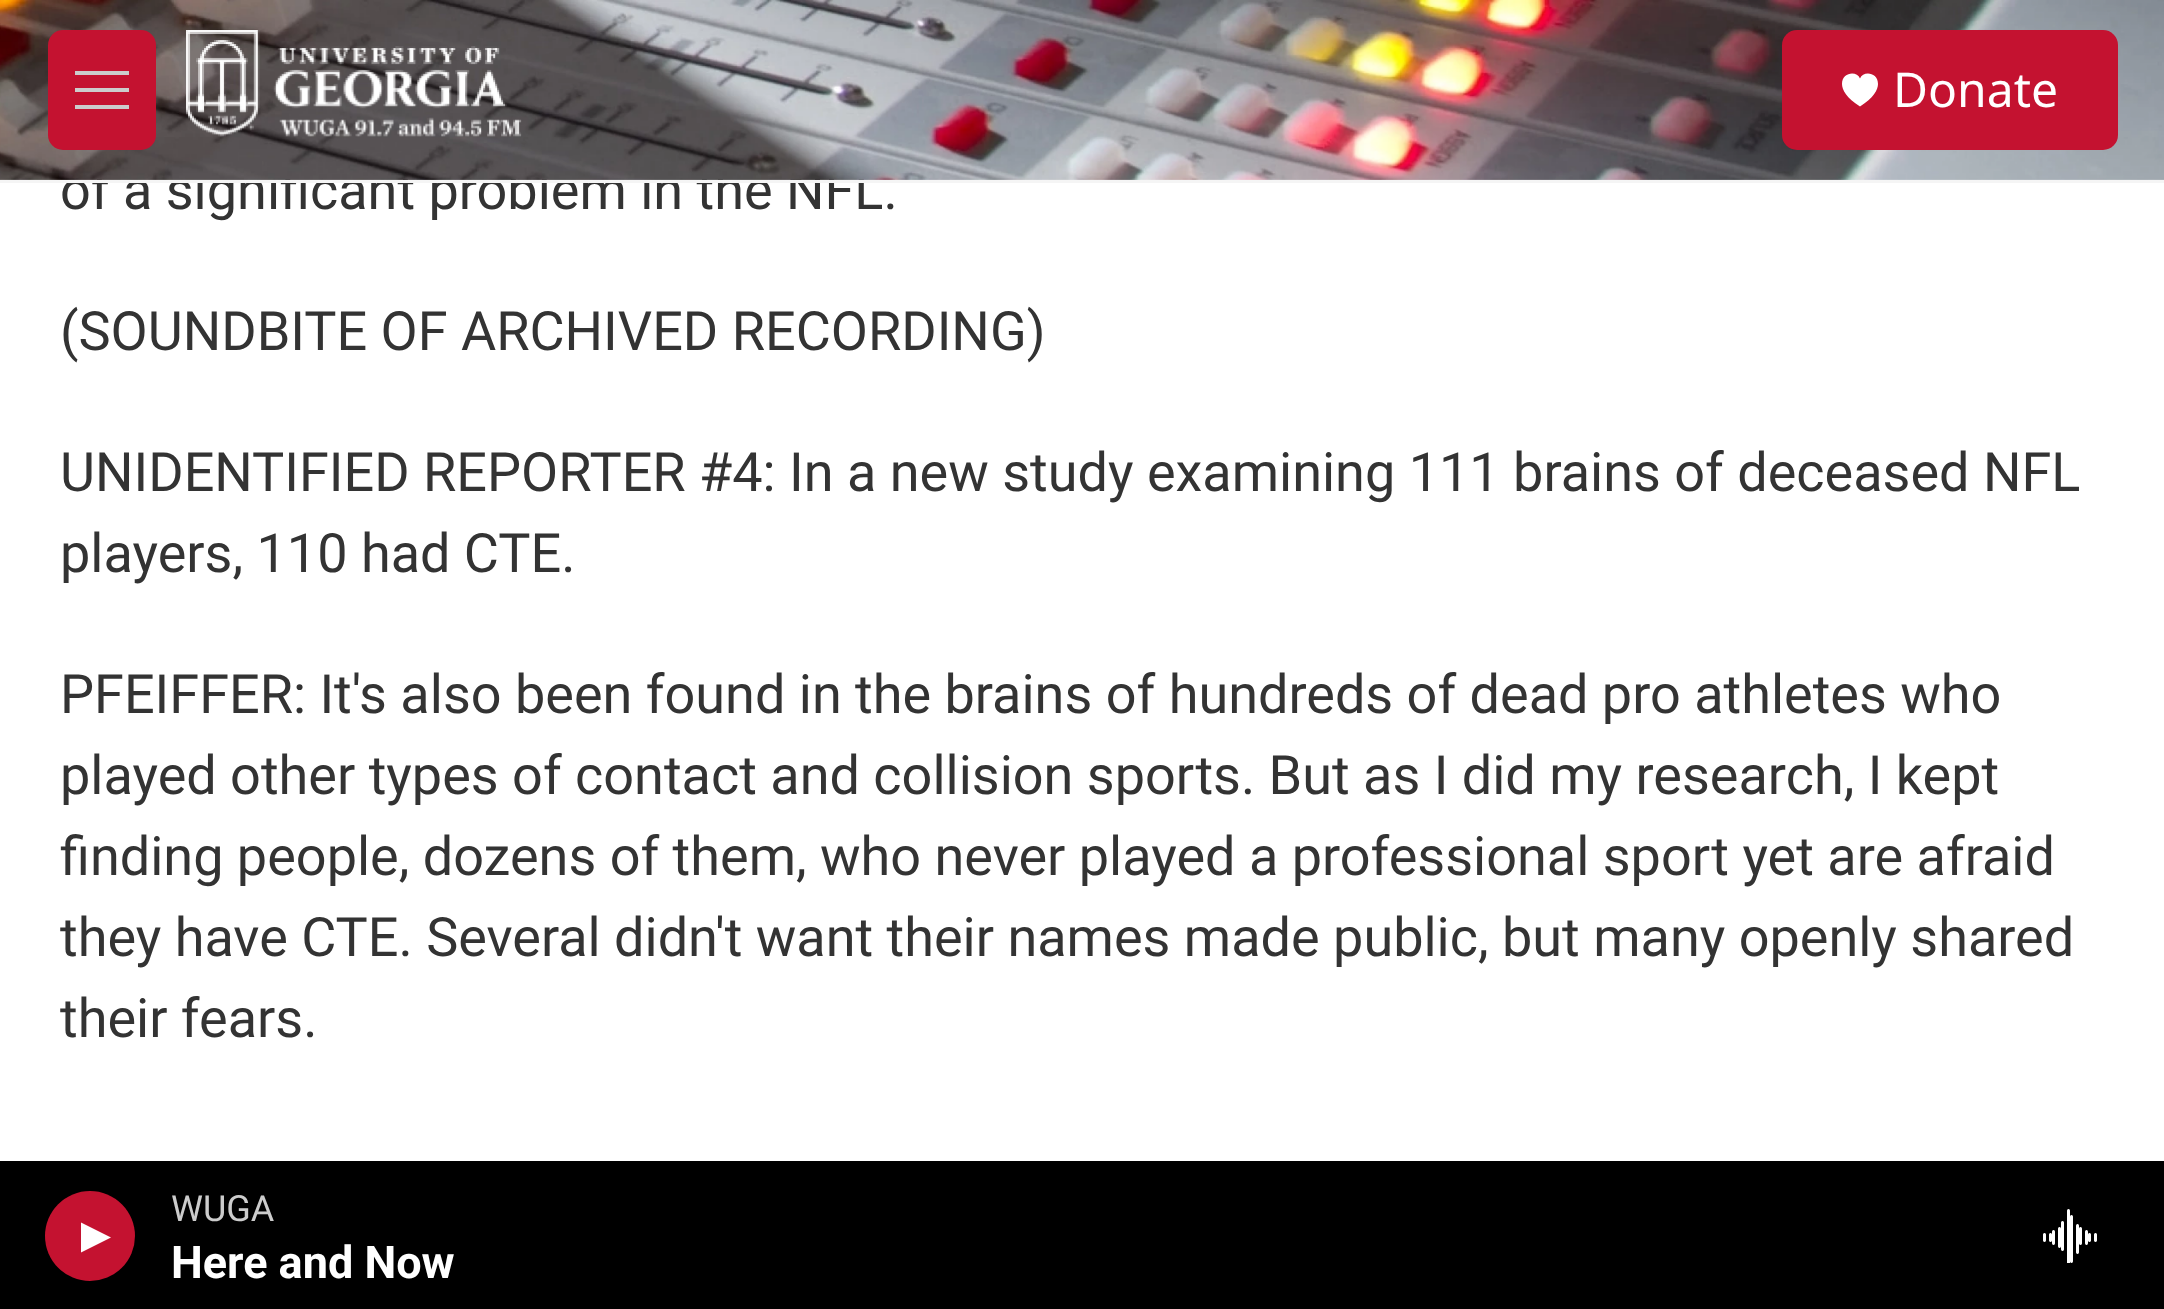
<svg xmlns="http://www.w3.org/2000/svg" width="2164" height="1309">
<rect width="100%" height="100%" fill="#fff"/>
<text x="60" y="209" style="font-family:Roboto;font-size:54px;fill:#333">of a significant problem in the NFL.</text>
<rect y="180" width="2164" height="3" fill="#f5f5f5"/>
<image x="0" y="0" width="2164" height="180" href="media/1.png"/>
<rect x="48" y="30" width="108" height="120" rx="15" fill="#c41230"/>
<path d="M75 92v-4h54v4zm0-17v-4h54v4zm0 34v-4h54v4z" fill="#ccc" fill-rule="evenodd"/>
<image x="186" y="30" width="336" height="107" href="media/2.png"/>
<rect x="1782" y="30" width="336" height="120" rx="15" fill="#c41230"/>
<path d="M1860 78.5c-3-8-18-6.5-18 5.5c0 6 4.5 14 18 22.5c13.5-8.5 18-16.5 18-22.5c0-12-15-13.5-18-5.5z" fill="#fff"/>
<text x="1893" y="107" style="font-family:Noto Sans;font-size:48px;fill:#fff">Donate</text>
<rect y="1161" width="2164" height="148" fill="#000"/>
<circle cx="90" cy="1236" r="45" fill="#c41230"/>
<path d="M81 1222.5l30 15l-30 15z" fill="#fff"/>
<text x="171" y="1221" style="font-family:Roboto;font-size:36px;fill:#ccc">WUGA</text>
<text x="171" y="1278" style="font-family:Roboto;font-size:45px;font-weight:bold;fill:#fff">Here and Now</text>
<image x="2043" y="1209" width="54" height="54" href="media/3.png"/>
<text x="60" y="350" style="font-family:Roboto;font-size:54px;fill:#333">(SOUNDBITE OF ARCHIVED RECORDING)</text>
<text x="60" y="491" style="font-family:Roboto;font-size:54px;fill:#333">UNIDENTIFIED REPORTER #4: In a new study examining 111 brains of deceased NFL</text>
<text x="60" y="572" style="font-family:Roboto;font-size:54px;fill:#333">players, 110 had CTE.</text>
<text x="60" y="713" style="font-family:Roboto;font-size:54px;fill:#333">PFEIFFER: It's also been found in the brains of hundreds of dead pro athletes who</text>
<text x="60" y="794" style="font-family:Roboto;font-size:54px;fill:#333">played other types of contact and collision sports. But as I did my research, I kept</text>
<text x="60" y="875" style="font-family:Roboto;font-size:54px;fill:#333">finding people, dozens of them, who never played a professional sport yet are afraid</text>
<text x="60" y="956" style="font-family:Roboto;font-size:54px;fill:#333">they have CTE. Several didn't want their names made public, but many openly shared</text>
<text x="60" y="1037" style="font-family:Roboto;font-size:54px;fill:#333">their fears.</text>
</svg>
